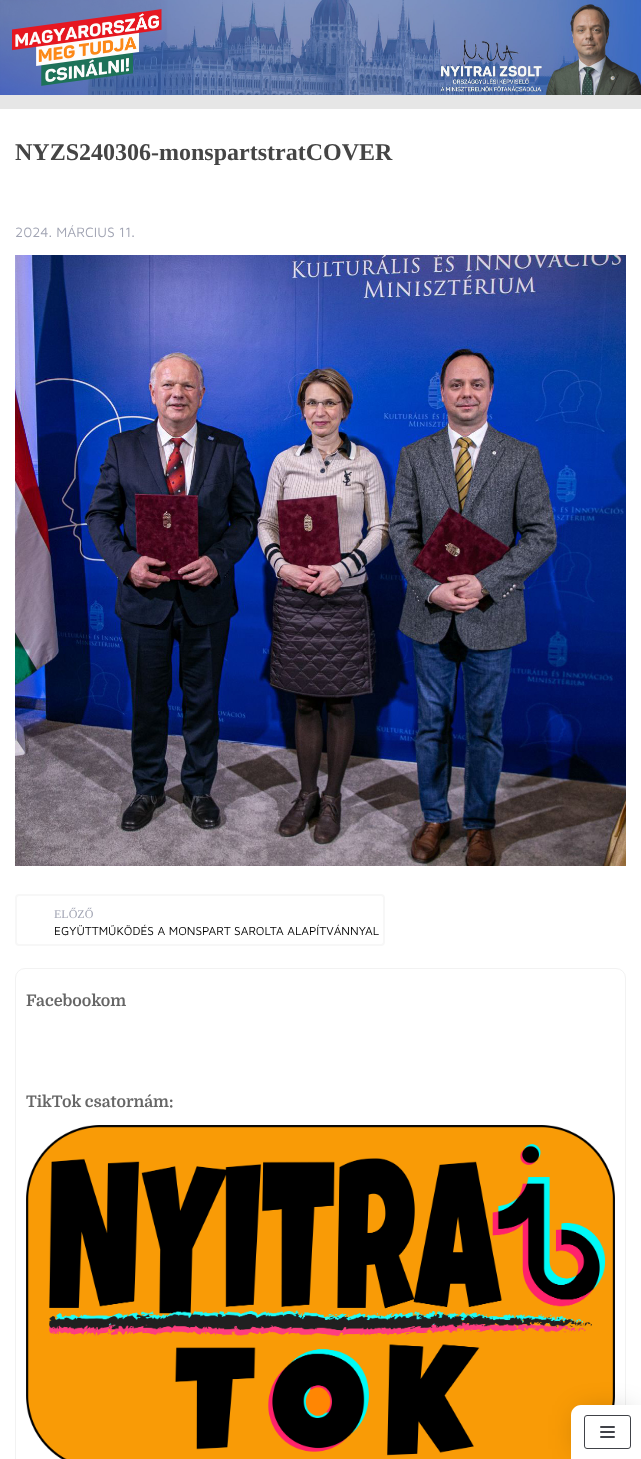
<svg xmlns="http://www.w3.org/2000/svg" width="641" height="1459">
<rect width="100%" height="100%" fill="#e6e6e6"/>
<image x="0" y="0" width="641" height="95" href="media/1.png"/>
<rect y="109" width="641" height="1350" fill="#fff"/>
<rect x="15.5" y="968.5" width="610" height="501" rx="9.5" fill="none" stroke="#f2f2f2"/>
<image x="26" y="1125" width="589" height="334" href="media/3.png"/>
<rect x="581" y="1415" width="50" height="34" fill="#0000004d" filter="blur(15px)"/>
<path d="M581 1405h60v54h-70v-44c0-5.5 4.5-10 10-10z" fill="#fff"/>
<rect x="584.5" y="1415.5" width="46" height="33" rx="2.5" fill="none" stroke="#404248"/>
<rect x="600" y="1426" width="15" height="2" rx="1" fill="#404248"/>
<rect x="600" y="1431" width="15" height="2" rx="1" fill="#404248"/>
<rect x="600" y="1436" width="15" height="2" rx="1" fill="#404248"/>
<text x="15" y="160" style="font-family:Liberation Serif;font-size:24px;font-weight:bold;fill:#454545">NYZS240306-monspartstratCOVER</text>
<text x="15" y="237" style="font-family:Maven Pro;font-size:14px;fill:#a1a4b3">2024. MÁRCIUS 11.</text>
<image x="15" y="255" width="611" height="611" href="media/2.png"/>
<rect x="16" y="895" width="368" height="50" rx="3" fill="none" stroke="#f7f7f7" stroke-width="2"/>
<text x="54" y="918" style="font-family:Liberation Serif;font-size:12px;fill:#a1a4b3">ELŐZŐ</text>
<text x="54" y="935" style="font-family:Maven Pro;font-size:12px;fill:#000">EGYÜTTMŰKÖDÉS A MONSPART SAROLTA ALAPÍTVÁNNYAL</text>
<text x="26" y="1006" style="font-family:Domine;font-size:16px;font-weight:bold;fill:#666">Facebookom</text>
<text x="26" y="1107" style="font-family:Domine;font-size:16px;font-weight:bold;fill:#666">TikTok csatornám:</text>
</svg>
